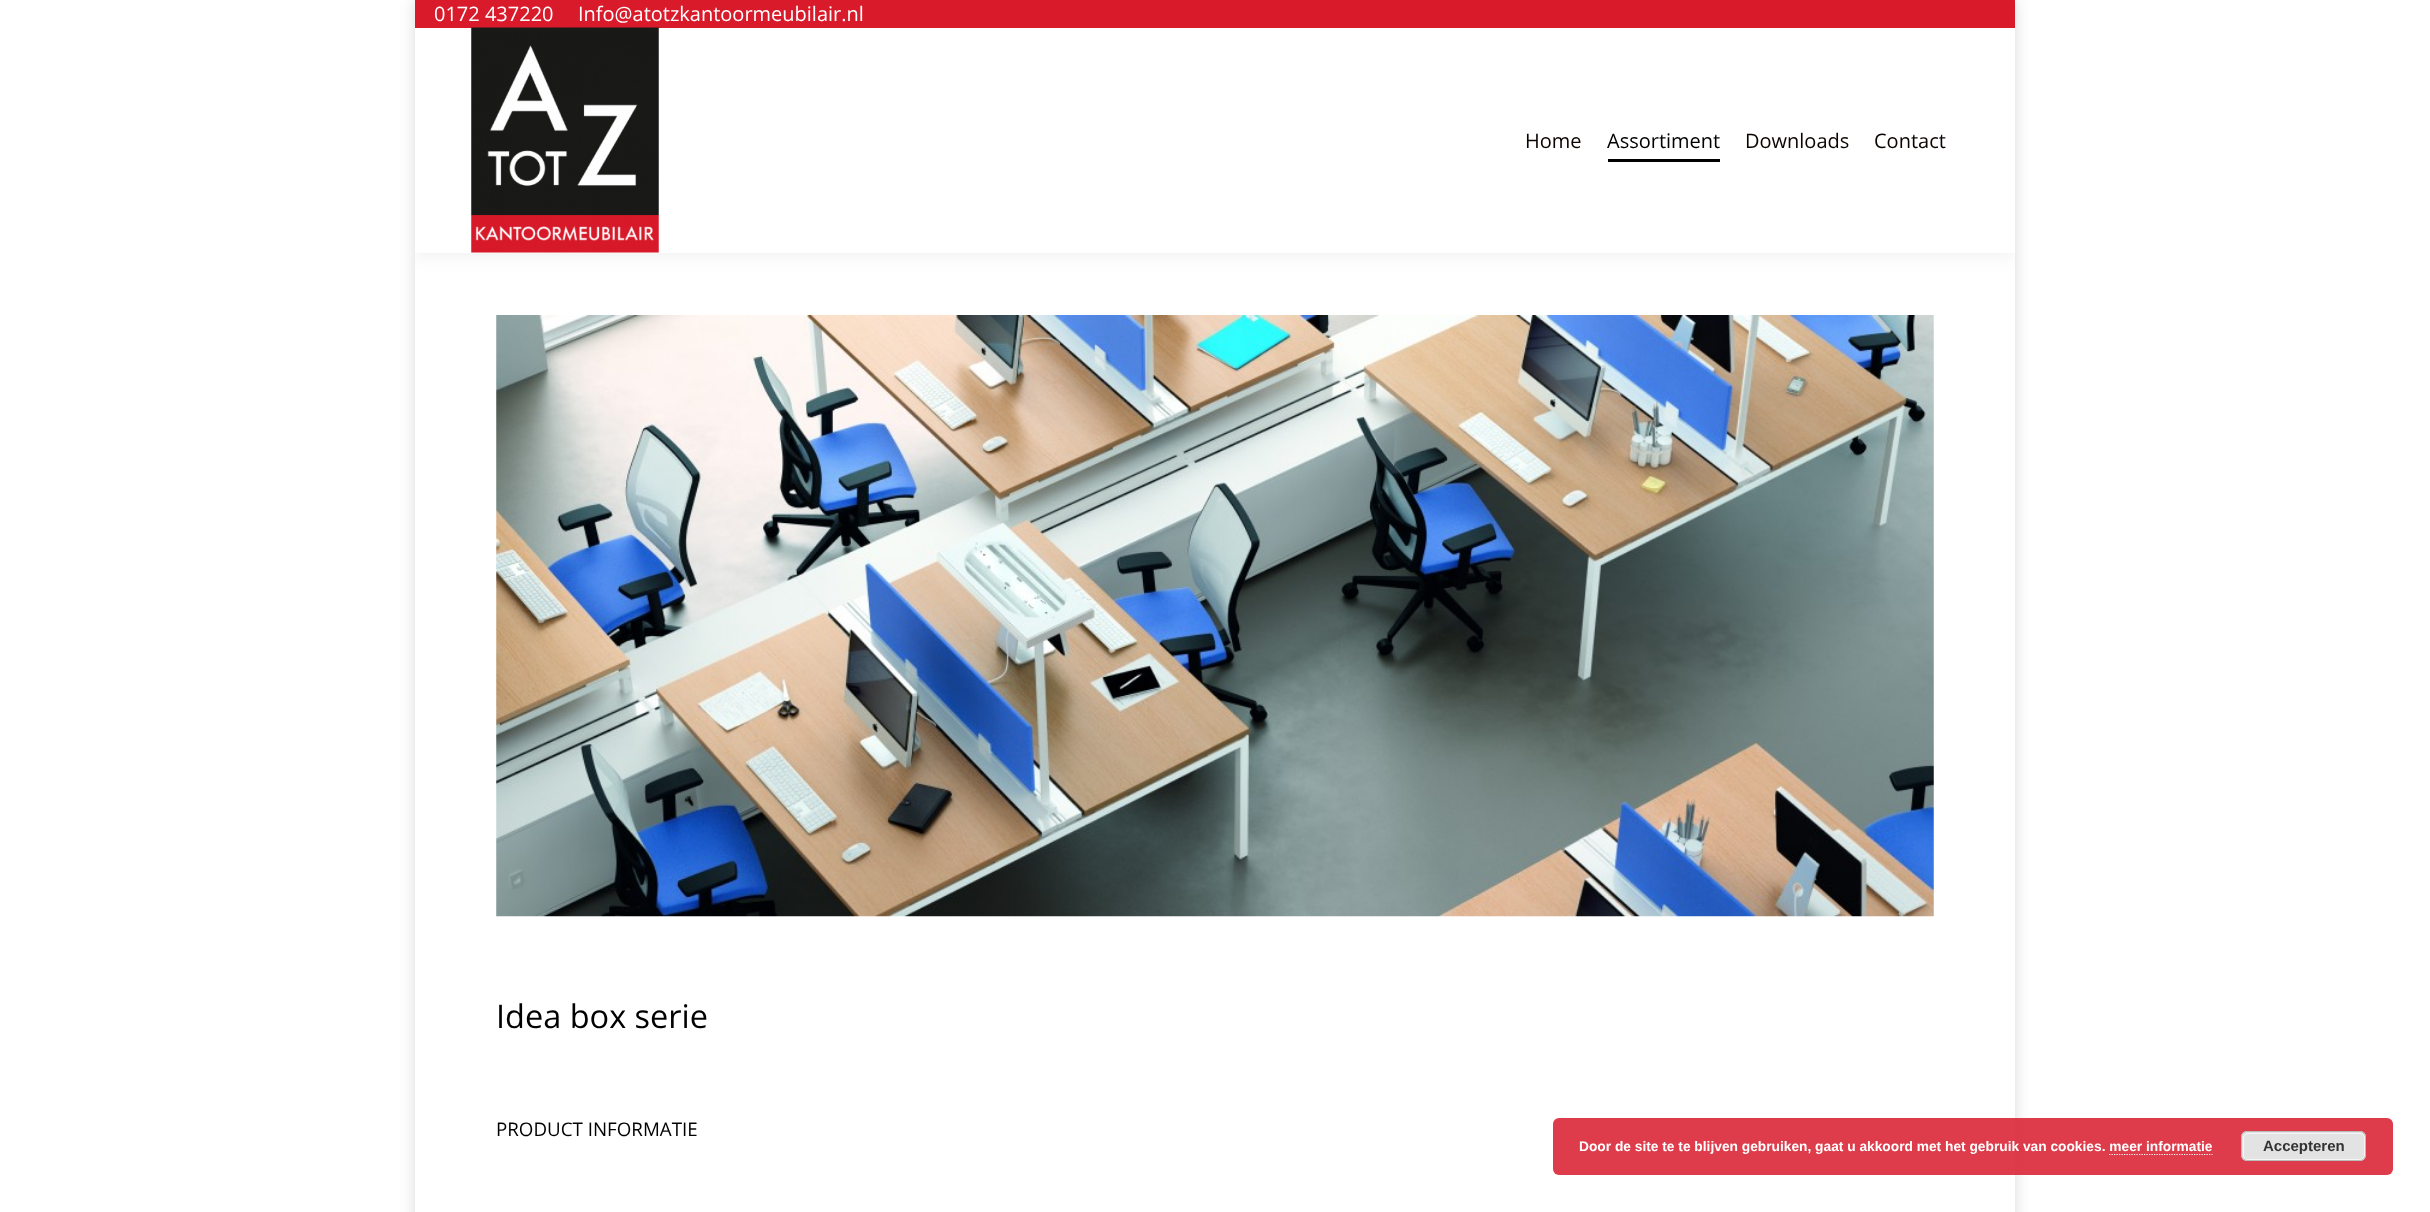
<svg xmlns="http://www.w3.org/2000/svg" width="2430" height="1212">
<defs>
<clipPath id="clip1"><path d="M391 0h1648v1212h-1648zm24 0h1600v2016h-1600z" clip-rule="evenodd"/></clipPath>
<clipPath id="clip2"><rect x="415" y="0" width="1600" height="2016"/></clipPath>
</defs>
<rect width="100%" height="100%" fill="#fff"/>
<g clip-path="url(#clip1)">
<rect x="415" width="1600" height="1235" fill="#00000026" filter="blur(7.5px)"/>
</g>
<g clip-path="url(#clip2)">
<rect x="414" y="-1" width="1602" height="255" fill="#00000012" filter="blur(9.5px)"/>
</g>
<rect x="415" y="28" width="1600" height="225" fill="#fff"/>
<rect x="415" width="1600" height="28" fill="#d81a2a"/>
<text x="434" y="21" style="font-family:Open Sans;font-size:20px;fill:#fff">0172 437220</text>
<text x="578" y="21" style="font-family:Open Sans;font-size:20px;fill:#fff">Info@atotzkantoormeubilair.nl</text>
<image x="471" y="27" width="188" height="226" href="media/1.png"/>
<text x="1525" y="148" style="font-family:Open Sans;font-size:20px;fill:#0c0400">Home</text>
<text x="1607" y="148" style="font-family:Open Sans;font-size:20px;fill:#000">Assortiment</text>
<rect x="1608" y="159" width="112" height="3" fill="#000"/>
<text x="1745" y="148" style="font-family:Open Sans;font-size:20px;fill:#0c0400">Downloads</text>
<text x="1874" y="148" style="font-family:Open Sans;font-size:20px;fill:#0c0400">Contact</text>
<image x="496" y="315" width="1438" height="602" href="media/2.png"/>
<text x="496" y="1028" style="font-family:Open Sans;font-size:32.5px;fill:#000">Idea box serie</text>
<text x="496" y="1136" style="font-family:Open Sans;font-size:18.75px;fill:#000">PRODUCT INFORMATIE</text>
<rect x="1553" y="1118" width="840" height="57" rx="6" fill="#d81a2ad9"/>
<text x="1579" y="1151" style="font-family:Liberation Sans;font-size:13.75px;font-weight:bold;fill:#fff">Door de site te te blijven gebruiken, gaat u akkoord met het gebruik van cookies. meer informatie</text>
<rect x="2241" y="1131" width="125" height="30" rx="6" fill="#e3e3e3"/>
<rect x="2243.5" y="1133.5" width="121" height="26" rx="4.5" fill="none" stroke="#f6f6f6"/>
<rect x="2241.5" y="1131.5" width="124" height="29" rx="5.5" fill="none" stroke="#bbb"/>
<text x="2263" y="1151" style="font-family:Liberation Sans;font-size:15px;font-weight:bold;fill:#333">Accepteren</text>
<path d="M2109 1154.5h103.5" fill="none" stroke="#fff" stroke-width="1.2" stroke-dasharray="1.25 1.25"/>
</svg>
